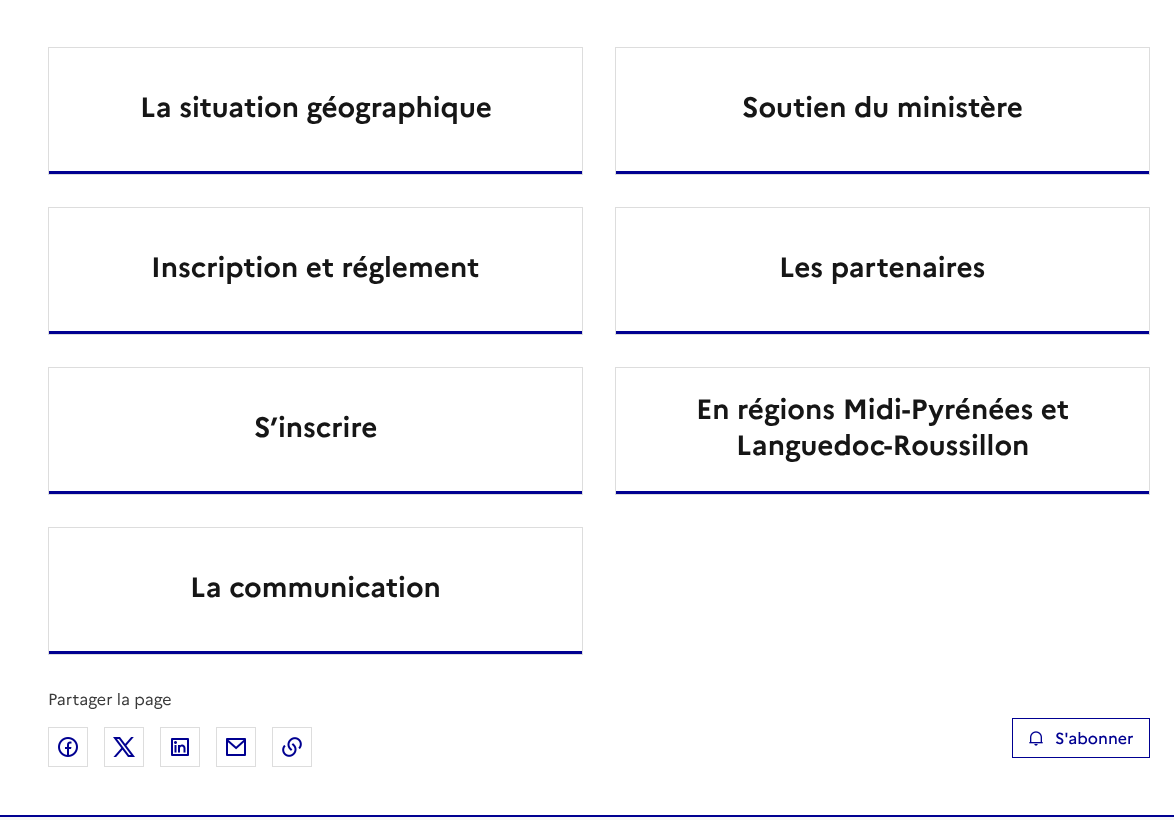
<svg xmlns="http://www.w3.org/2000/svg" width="1174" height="820">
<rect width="100%" height="100%" fill="#fff"/>
<rect x="48" y="171" width="535" height="3" fill="#000091"/>
<rect x="48.5" y="47.5" width="534" height="127" fill="none" stroke="#ddd"/>
<text x="140" y="117" style="font-family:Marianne;font-size:28px;font-weight:bold;fill:#161616">La situation géographique</text>
<rect x="615" y="171" width="535" height="3" fill="#000091"/>
<rect x="615.5" y="47.5" width="534" height="127" fill="none" stroke="#ddd"/>
<text x="742" y="117" style="font-family:Marianne;font-size:28px;font-weight:bold;fill:#161616">Soutien du ministère</text>
<rect x="48" y="331" width="535" height="3" fill="#000091"/>
<rect x="48.5" y="207.5" width="534" height="127" fill="none" stroke="#ddd"/>
<text x="151" y="277" style="font-family:Marianne;font-size:28px;font-weight:bold;fill:#161616">Inscription et réglement</text>
<rect x="615" y="331" width="535" height="3" fill="#000091"/>
<rect x="615.5" y="207.5" width="534" height="127" fill="none" stroke="#ddd"/>
<text x="779" y="277" style="font-family:Marianne;font-size:28px;font-weight:bold;fill:#161616">Les partenaires</text>
<rect x="48" y="491" width="535" height="3" fill="#000091"/>
<rect x="48.5" y="367.5" width="534" height="127" fill="none" stroke="#ddd"/>
<text x="254" y="437" style="font-family:Marianne;font-size:28px;font-weight:bold;fill:#161616">S’inscrire</text>
<rect x="615" y="491" width="535" height="3" fill="#000091"/>
<rect x="615.5" y="367.5" width="534" height="127" fill="none" stroke="#ddd"/>
<text x="696" y="419" style="font-family:Marianne;font-size:28px;font-weight:bold;fill:#161616">En régions Midi-Pyrénées et</text>
<text x="736" y="455" style="font-family:Marianne;font-size:28px;font-weight:bold;fill:#161616">Languedoc-Roussillon</text>
<rect x="48" y="651" width="535" height="3" fill="#000091"/>
<rect x="48.5" y="527.5" width="534" height="127" fill="none" stroke="#ddd"/>
<text x="190" y="597" style="font-family:Marianne;font-size:28px;font-weight:bold;fill:#161616">La communication</text>
<text x="48" y="705" style="font-family:Marianne;font-size:16px;fill:#3a3a3a">Partager la page</text>
<rect x="48.5" y="727.5" width="39" height="39" fill="none" stroke="#ddd"/>
<image x="58" y="737" width="20" height="20" href="media/1.png"/>
<rect x="104.5" y="727.5" width="39" height="39" fill="none" stroke="#ddd"/>
<image x="113" y="737" width="22" height="20" href="media/2.png"/>
<rect x="160.5" y="727.5" width="39" height="39" fill="none" stroke="#ddd"/>
<image x="171" y="738" width="18" height="18" href="media/3.png"/>
<rect x="216.5" y="727.5" width="39" height="39" fill="none" stroke="#ddd"/>
<image x="226" y="738" width="20" height="18" href="media/4.png"/>
<rect x="272.5" y="727.5" width="39" height="39" fill="none" stroke="#ddd"/>
<image x="282" y="737" width="20" height="20" href="media/5.png"/>
<rect x="1012.5" y="718.5" width="137" height="39" fill="none" stroke="#000091"/>
<image x="1029" y="731" width="14" height="15" href="media/6.png"/>
<text x="1055" y="744" style="font-family:Marianne;font-size:16px;font-weight:500;fill:#000091">S'abonner</text>
<rect y="815" width="1174" height="2" fill="#000091"/>
<rect y="817" width="1174" height="3" fill="#f6f6f6"/>
</svg>
